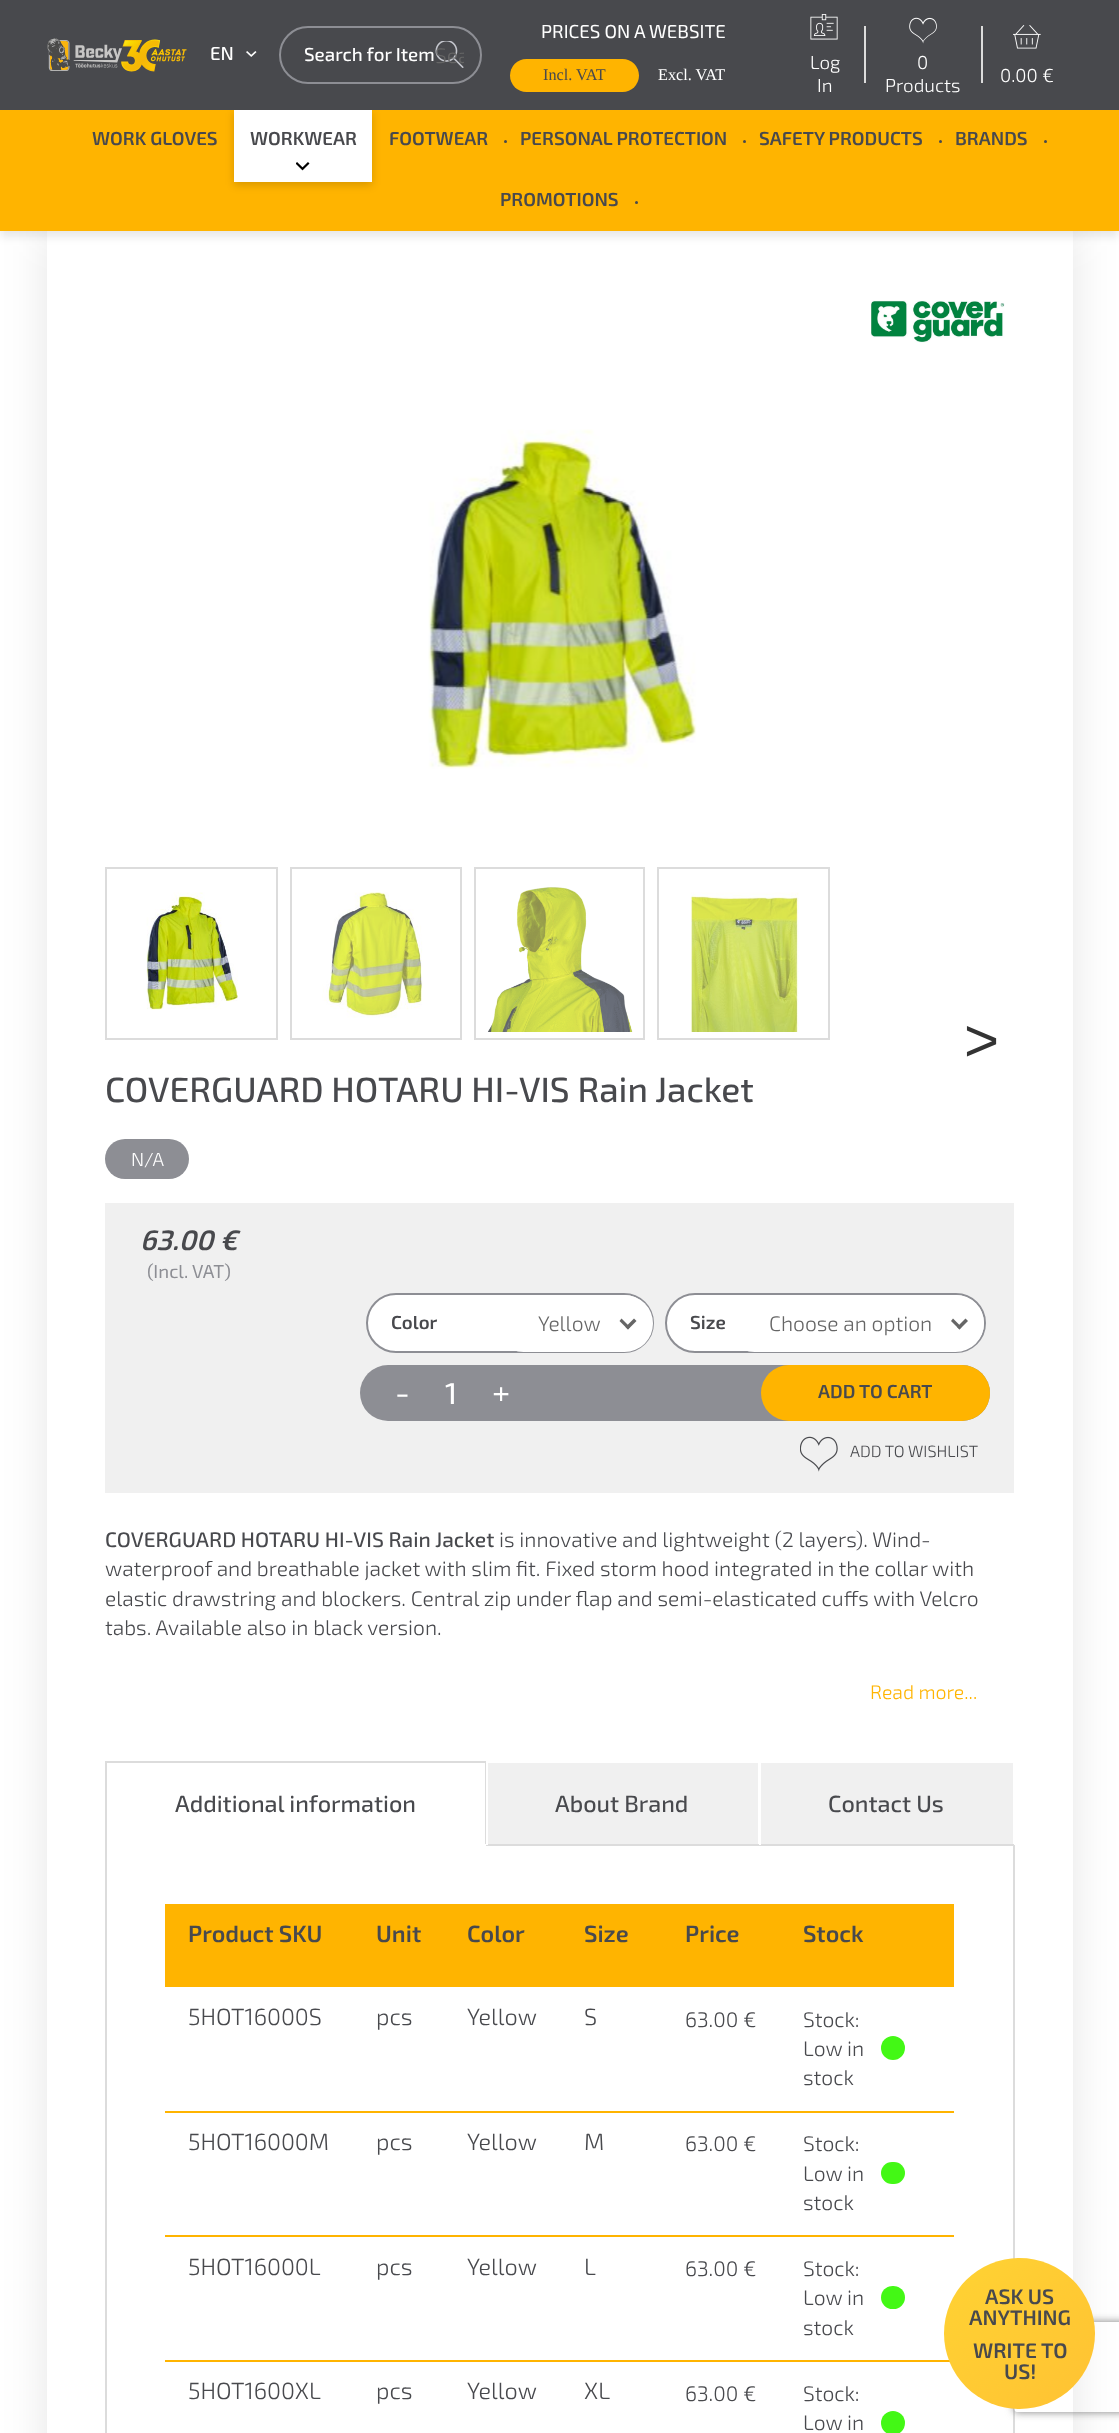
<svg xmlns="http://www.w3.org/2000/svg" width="1119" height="2433">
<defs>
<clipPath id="clip1"><path d="M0 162h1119v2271h-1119zm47 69h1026v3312h-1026z" clip-rule="evenodd"/></clipPath>
<clipPath id="clip2"><rect x="435" y="39" width="29" height="30"/></clipPath>
<clipPath id="clip3"><path d="M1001 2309h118v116h-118zm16 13h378c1.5 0 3 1.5 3 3v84c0 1.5-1.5 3-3 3h-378c-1.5 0-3-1.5-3-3v-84c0-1.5 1.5-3 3-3z" clip-rule="evenodd"/></clipPath>
<linearGradient id="g1" gradientUnits="userSpaceOnUse" x1="944" y1="2258" x2="1095" y2="2409"><stop offset="0" stop-color="#ffd333"/><stop offset="1" stop-color="#ffc233"/></linearGradient>
</defs>
<rect width="100%" height="100%" fill="#fff"/>
<rect y="116" width="1119" height="121" fill="#00000017" filter="blur(4.5px)"/>
<g clip-path="url(#clip1)">
<rect x="47" y="231" width="1026" height="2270" fill="#0000001a" filter="blur(22.5px)"/>
</g>
<rect y="110" width="1119" height="121" fill="#ffb400"/>
<rect x="234" y="113" width="138" height="72" fill="#00000029" filter="blur(4px)"/>
<rect width="1119" height="110" fill="#48494d"/>
<image x="47" y="38" width="140" height="34" href="media/1.png"/>
<text x="210" y="60" style="font-family:'Exo 2';font-size:18.75px;font-weight:500;fill:#fff">EN</text>
<image x="246" y="51" width="11" height="6" href="media/2.png"/>
<rect x="280" y="27" width="201" height="56" rx="28" fill="none" stroke="#8d8e94" stroke-width="2"/>
<text x="304" y="61" style="font-family:'Exo 2';font-size:18.75px;font-weight:500;fill:#fff">Search for Item</text>
<image x="435" y="41" width="29" height="27" href="media/3.png"/>
<g clip-path="url(#clip2)">
<text x="435" y="63" style="font-family:'Exo 2';font-size:21px;font-weight:300;fill:#666">Sea</text>
</g>
<text x="541" y="38" style="font-family:'Exo 2';font-size:18.75px;fill:#fff">PRICES ON A WEBSITE</text>
<rect x="510" y="59" width="129" height="33" rx="16.5" fill="#ffb400"/>
<text x="543" y="80" style="font-family:Liberation Serif;font-size:16.25px;fill:#48494d">Incl. VAT</text>
<text x="658" y="80" style="font-family:Liberation Serif;font-size:16.25px;fill:#fff">Excl. VAT</text>
<image x="810" y="14" width="28" height="26" href="media/4.png"/>
<text x="810" y="69" style="font-family:'Exo 2';font-size:18.75px;font-weight:300;fill:#fff">Log</text>
<text x="817" y="92" style="font-family:'Exo 2';font-size:18.75px;font-weight:300;fill:#fff">In</text>
<rect x="864" y="26" width="2" height="57" fill="#dcdcdc"/>
<image x="909" y="17" width="28" height="27" href="media/5.png"/>
<text x="917" y="69" style="font-family:'Exo 2';font-size:18.75px;font-weight:300;fill:#fff">0</text>
<text x="885" y="92" style="font-family:'Exo 2';font-size:18.75px;font-weight:300;fill:#fff">Products</text>
<rect x="981" y="26" width="2" height="57" fill="#dcdcdc"/>
<image x="1013" y="25" width="28" height="24" href="media/6.png"/>
<text x="1000" y="82" style="font-family:'Exo 2';font-size:18.75px;font-weight:300;fill:#fff">0.00 €</text>
<text x="92" y="145" style="font-family:'Exo 2';font-size:18.75px;font-weight:600;fill:#48494d">WORK GLOVES</text>
<rect x="234" y="110" width="138" height="72" fill="#fff"/>
<text x="250" y="145" style="font-family:'Exo 2';font-size:18.75px;font-weight:600;fill:#48494d">WORKWEAR</text>
<image x="296" y="162" width="14" height="9" href="media/7.png"/>
<text x="389" y="145" style="font-family:'Exo 2';font-size:18.75px;font-weight:600;fill:#48494d">FOOTWEAR</text>
<circle cx="505.5" cy="141.5" r="1.5" fill="#48494d"/>
<text x="520" y="145" style="font-family:'Exo 2';font-size:18.75px;font-weight:600;fill:#48494d">PERSONAL PROTECTION</text>
<circle cx="744.5" cy="141.5" r="1.5" fill="#48494d"/>
<text x="759" y="145" style="font-family:'Exo 2';font-size:18.75px;font-weight:600;fill:#48494d">SAFETY PRODUCTS</text>
<circle cx="940.5" cy="141.5" r="1.5" fill="#48494d"/>
<text x="955" y="145" style="font-family:'Exo 2';font-size:18.75px;font-weight:600;fill:#48494d">BRANDS</text>
<circle cx="1045.5" cy="141.5" r="1.5" fill="#48494d"/>
<text x="500" y="206" style="font-family:'Exo 2';font-size:18.75px;font-weight:600;fill:#48494d">PROMOTIONS</text>
<circle cx="636.5" cy="202.5" r="1.5" fill="#48494d"/>
<image x="871" y="300" width="134" height="43" href="media/8.png"/>
<image x="428" y="429" width="269" height="340" href="media/9.png"/>
<rect x="106" y="868" width="171" height="171" fill="none" stroke="#dcdcdc" stroke-width="2"/>
<image x="146" y="892" width="92" height="118" href="media/10.png"/>
<rect x="291" y="868" width="170" height="171" fill="none" stroke="#dcdcdc" stroke-width="2"/>
<image x="322" y="892" width="101" height="126" href="media/11.png"/>
<rect x="475" y="868" width="169" height="171" fill="none" stroke="#dcdcdc" stroke-width="2"/>
<image x="487" y="887" width="146" height="145" href="media/12.png"/>
<rect x="658" y="868" width="171" height="171" fill="none" stroke="#dcdcdc" stroke-width="2"/>
<image x="690" y="892" width="109" height="140" href="media/13.png"/>
<text x="964" y="1061" style="font-family:Liberation Sans;font-size:60px;fill:#333">&gt;</text>
<text x="105" y="1102" style="font-family:'Exo 2';font-size:35px;font-weight:500;fill:#48494d">COVERGUARD HOTARU HI-VIS Rain Jacket</text>
<rect x="105" y="1139" width="84" height="40" rx="20" fill="#8d8e94"/>
<text x="131" y="1166" style="font-family:'Exo 2';font-size:18.75px;font-weight:300;fill:#fff">N/A</text>
<rect x="105" y="1203" width="909" height="290" fill="#f0f0f0"/>
<text x="140" y="1250" style="font-family:'Exo 2';font-size:28px;font-weight:600;font-style:italic;fill:#48494d">63.00 €</text>
<text x="147" y="1278" style="font-family:'Exo 2';font-size:18.75px;fill:#8d8e94">(Incl. VAT)</text>
<rect x="367" y="1294" width="286" height="58" rx="29" fill="#fff" stroke="#8d8e94" stroke-width="2"/>
<text x="391" y="1329" style="font-family:'Exo 2';font-size:18.75px;font-weight:600;fill:#48494d">Color</text>
<rect x="495" y="1295" width="158" height="57" rx="28.5" fill="#fff"/>
<text x="538" y="1331" style="font-family:'Exo 2';font-size:21px;font-weight:300;fill:#666">Yellow</text>
<path d="M634 1318.5l2.5 2.5l-8.5 8.5l-2.5-2.5z" fill="#666"/>
<path d="M621.5 1318.5l8.5 8.5l-2 2.5l-8.5-8.5z" fill="#666"/>
<rect x="666" y="1294" width="319" height="58" rx="29" fill="#fff" stroke="#8d8e94" stroke-width="2"/>
<text x="690" y="1329" style="font-family:'Exo 2';font-size:18.75px;font-weight:600;fill:#48494d">Size</text>
<rect x="726" y="1295" width="258" height="57" rx="28.5" fill="#fff"/>
<text x="769" y="1331" style="font-family:'Exo 2';font-size:21px;font-weight:300;fill:#666">Choose an option</text>
<path d="M965.5 1318.5l2.5 2.5l-8.5 8.5l-2.5-2.5z" fill="#666"/>
<path d="M953 1318.5l8.5 8.5l-2 2.5l-8.5-8.5z" fill="#666"/>
<rect x="360" y="1365" width="630" height="56" rx="28" fill="#8d8e94"/>
<text x="395" y="1404" style="font-family:'Exo 2';font-size:33px;fill:#fff">-</text>
<text x="445" y="1404" style="font-family:'Exo 2';font-size:30px;font-weight:500;fill:#fff">1</text>
<text x="492" y="1404" style="font-family:'Exo 2';font-size:33px;fill:#fff">+</text>
<rect x="761" y="1365" width="229" height="56" rx="28" fill="#ffb400"/>
<text x="818" y="1398" style="font-family:'Exo 2';font-size:18.75px;font-weight:600;fill:#48494d">ADD TO CART</text>
<image x="800" y="1436" width="38" height="36" href="media/14.png"/>
<text x="850" y="1457" style="font-family:'Exo 2';font-size:16.25px;font-weight:300;fill:#48494d">ADD TO WISHLIST</text>
<text x="105" y="1547" style="font-family:'Exo 2';font-size:21px;font-weight:500;fill:#48494d">COVERGUARD HOTARU HI-VIS Rain Jacket</text>
<text x="499" y="1547" style="font-family:'Exo 2';font-size:21px;font-weight:300;fill:#48494d">is innovative and lightweight (2 layers). Wind-</text>
<text x="105" y="1576" style="font-family:'Exo 2';font-size:21px;font-weight:300;fill:#48494d">waterproof and breathable jacket with slim fit. Fixed storm hood integrated in the collar with</text>
<text x="105" y="1606" style="font-family:'Exo 2';font-size:21px;font-weight:300;fill:#48494d">elastic drawstring and blockers. Central zip under flap and semi-elasticated cuffs with Velcro</text>
<text x="105" y="1635" style="font-family:'Exo 2';font-size:21px;font-weight:300;fill:#48494d">tabs. Available also in black version.</text>
<text x="870" y="1699" style="font-family:'Exo 2';font-size:19.5px;font-weight:300;fill:#ffb400">Read more...</text>
<rect x="105" y="1761" width="381" height="2" fill="#dcdcdc"/>
<rect x="485" y="1761" width="1" height="84" fill="#dcdcdc"/>
<rect x="485" y="1844" width="1" height="1" fill="#fff"/>
<rect x="105" y="1761" width="2" height="672" fill="#dcdcdc"/>
<text x="175" y="1812" style="font-family:'Exo 2';font-size:23.4px;font-weight:500;fill:#48494d">Additional information</text>
<rect x="488" y="1763" width="270" height="81" fill="#f0f0f0"/>
<rect x="486" y="1844" width="528" height="2" fill="#dcdcdc"/>
<rect x="486" y="1844" width="2" height="1" fill="#fff"/>
<text x="555" y="1812" style="font-family:'Exo 2';font-size:23.4px;font-weight:500;fill:#48494d">About Brand</text>
<rect x="761" y="1763" width="252" height="81" fill="#f0f0f0"/>
<rect x="759" y="1844" width="2" height="1" fill="#fff"/>
<text x="828" y="1812" style="font-family:'Exo 2';font-size:23.4px;font-weight:500;fill:#48494d">Contact Us</text>
<rect x="1013" y="1845" width="2" height="588" fill="#dcdcdc"/>
<rect x="165" y="1986" width="789" height="1" fill="#ffb400"/>
<rect x="165" y="1904" width="789" height="82" fill="#ffb400"/>
<text x="188" y="1942" style="font-family:'Exo 2';font-size:23.4px;font-weight:600;fill:#48494d">Product SKU</text>
<text x="376" y="1942" style="font-family:'Exo 2';font-size:23.4px;font-weight:600;fill:#48494d">Unit</text>
<text x="467" y="1942" style="font-family:'Exo 2';font-size:23.4px;font-weight:600;fill:#48494d">Color</text>
<text x="584" y="1942" style="font-family:'Exo 2';font-size:23.4px;font-weight:600;fill:#48494d">Size</text>
<text x="685" y="1942" style="font-family:'Exo 2';font-size:23.4px;font-weight:600;fill:#48494d">Price</text>
<text x="803" y="1942" style="font-family:'Exo 2';font-size:23.4px;font-weight:600;fill:#48494d">Stock</text>
<rect x="165" y="2111" width="789" height="2" fill="#ffb400"/>
<text x="188" y="2025" style="font-family:'Exo 2';font-size:23.4px;font-weight:300;fill:#48494d">5HOT16000S</text>
<text x="376" y="2025" style="font-family:'Exo 2';font-size:23.4px;font-weight:300;fill:#48494d">pcs</text>
<text x="467" y="2025" style="font-family:'Exo 2';font-size:23.4px;font-weight:300;fill:#48494d">Yellow</text>
<text x="584" y="2025" style="font-family:'Exo 2';font-size:23.4px;font-weight:300;fill:#48494d">S</text>
<text x="685" y="2027" style="font-family:'Exo 2';font-size:21px;font-weight:300;fill:#48494d">63.00 €</text>
<text x="803" y="2027" style="font-family:'Exo 2';font-size:21px;font-weight:300;fill:#48494d">Stock:</text>
<text x="803" y="2056" style="font-family:'Exo 2';font-size:21px;font-weight:300;fill:#48494d">Low in</text>
<circle cx="893" cy="2048" r="12" fill="#43f815"/>
<text x="803" y="2085" style="font-family:'Exo 2';font-size:21px;font-weight:300;fill:#48494d">stock</text>
<rect x="165" y="2235" width="789" height="2" fill="#ffb400"/>
<text x="188" y="2150" style="font-family:'Exo 2';font-size:23.4px;font-weight:300;fill:#48494d">5HOT16000M</text>
<text x="376" y="2150" style="font-family:'Exo 2';font-size:23.4px;font-weight:300;fill:#48494d">pcs</text>
<text x="467" y="2150" style="font-family:'Exo 2';font-size:23.4px;font-weight:300;fill:#48494d">Yellow</text>
<text x="584" y="2150" style="font-family:'Exo 2';font-size:23.4px;font-weight:300;fill:#48494d">M</text>
<text x="685" y="2151" style="font-family:'Exo 2';font-size:21px;font-weight:300;fill:#48494d">63.00 €</text>
<text x="803" y="2151" style="font-family:'Exo 2';font-size:21px;font-weight:300;fill:#48494d">Stock:</text>
<text x="803" y="2181" style="font-family:'Exo 2';font-size:21px;font-weight:300;fill:#48494d">Low in</text>
<rect x="881" y="2162" width="24" height="22" rx="11" fill="#43f815"/>
<text x="803" y="2210" style="font-family:'Exo 2';font-size:21px;font-weight:300;fill:#48494d">stock</text>
<rect x="165" y="2360" width="789" height="2" fill="#ffb400"/>
<text x="188" y="2275" style="font-family:'Exo 2';font-size:23.4px;font-weight:300;fill:#48494d">5HOT16000L</text>
<text x="376" y="2275" style="font-family:'Exo 2';font-size:23.4px;font-weight:300;fill:#48494d">pcs</text>
<text x="467" y="2275" style="font-family:'Exo 2';font-size:23.4px;font-weight:300;fill:#48494d">Yellow</text>
<text x="584" y="2275" style="font-family:'Exo 2';font-size:23.4px;font-weight:300;fill:#48494d">L</text>
<text x="685" y="2276" style="font-family:'Exo 2';font-size:21px;font-weight:300;fill:#48494d">63.00 €</text>
<text x="803" y="2276" style="font-family:'Exo 2';font-size:21px;font-weight:300;fill:#48494d">Stock:</text>
<text x="803" y="2305" style="font-family:'Exo 2';font-size:21px;font-weight:300;fill:#48494d">Low in</text>
<rect x="881" y="2286" width="24" height="23" rx="11.5" fill="#43f815"/>
<text x="803" y="2335" style="font-family:'Exo 2';font-size:21px;font-weight:300;fill:#48494d">stock</text>
<text x="188" y="2399" style="font-family:'Exo 2';font-size:23.4px;font-weight:300;fill:#48494d">5HOT1600XL</text>
<text x="376" y="2399" style="font-family:'Exo 2';font-size:23.4px;font-weight:300;fill:#48494d">pcs</text>
<text x="467" y="2399" style="font-family:'Exo 2';font-size:23.4px;font-weight:300;fill:#48494d">Yellow</text>
<text x="584" y="2399" style="font-family:'Exo 2';font-size:23.4px;font-weight:300;fill:#48494d">XL</text>
<text x="685" y="2401" style="font-family:'Exo 2';font-size:21px;font-weight:300;fill:#48494d">63.00 €</text>
<text x="803" y="2401" style="font-family:'Exo 2';font-size:21px;font-weight:300;fill:#48494d">Stock:</text>
<text x="803" y="2430" style="font-family:'Exo 2';font-size:21px;font-weight:300;fill:#48494d">Low in</text>
<circle cx="893" cy="2423" r="12" fill="#43f815"/>
<g clip-path="url(#clip3)">
<rect x="1014" y="2322" width="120" height="90" rx="3" fill="#808080" filter="blur(4px)"/>
</g>
<circle cx="1019.5" cy="2333.5" r="75.5" fill="url(#g1)"/>
<text x="985" y="2304" style="font-family:'Exo 2';font-size:21px;font-weight:600;fill:#48494d">ASK US</text>
<text x="969" y="2325" style="font-family:'Exo 2';font-size:21px;font-weight:600;fill:#48494d">ANYTHING</text>
<text x="973" y="2358" style="font-family:'Exo 2';font-size:21px;font-weight:600;fill:#48494d">WRITE TO</text>
<text x="1004" y="2379" style="font-family:'Exo 2';font-size:21px;font-weight:600;fill:#48494d">US!</text>
</svg>
